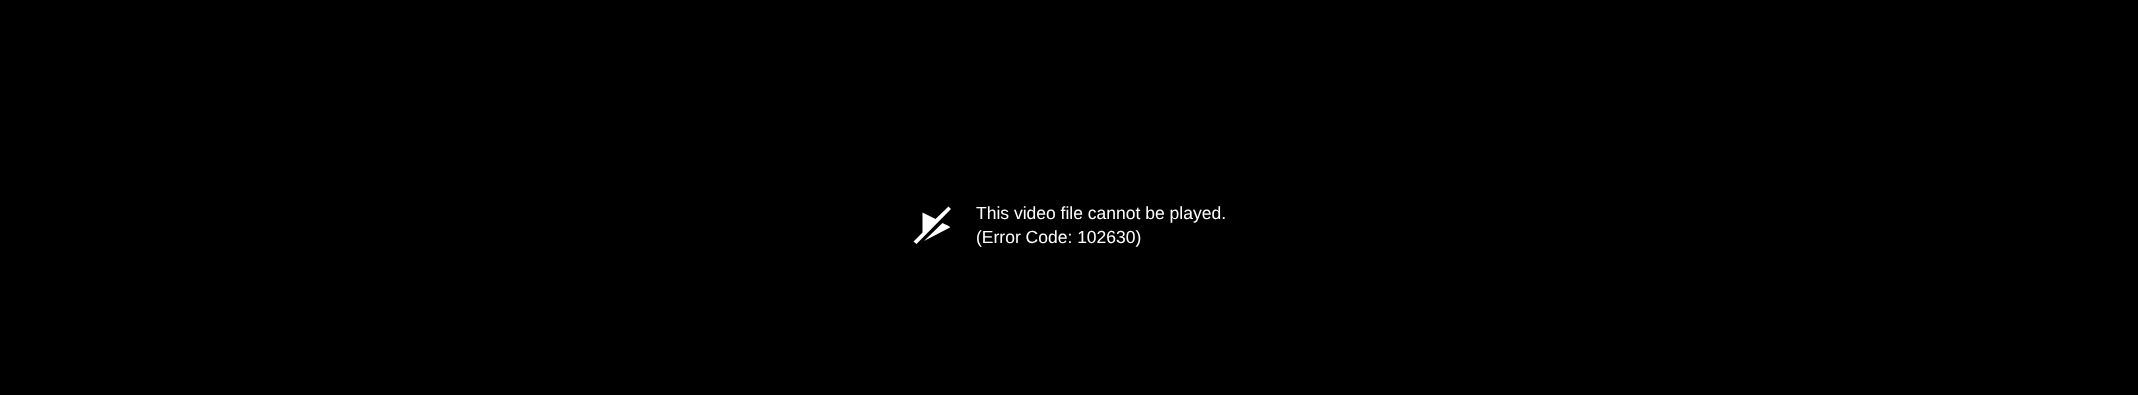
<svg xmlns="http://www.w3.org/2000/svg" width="2138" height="395">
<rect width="100%" height="100%" fill="#000"/>
<path d="M950 227.5l-26 13.5l18.5-18c7 3.5 8.5 4 7.5 4.5zm-1.5-21l-13 12.5l-13-6.5v20l-9 9l3 2.5l34.5-35z" fill="#fff"/>
<text x="976" y="219" style="font-family:Liberation Sans;font-size:17.5px;fill:#fff">This video file cannot be played.</text>
<text x="976" y="243" style="font-family:Liberation Sans;font-size:17.5px;fill:#fff">(Error Code: 102630)</text>
</svg>
